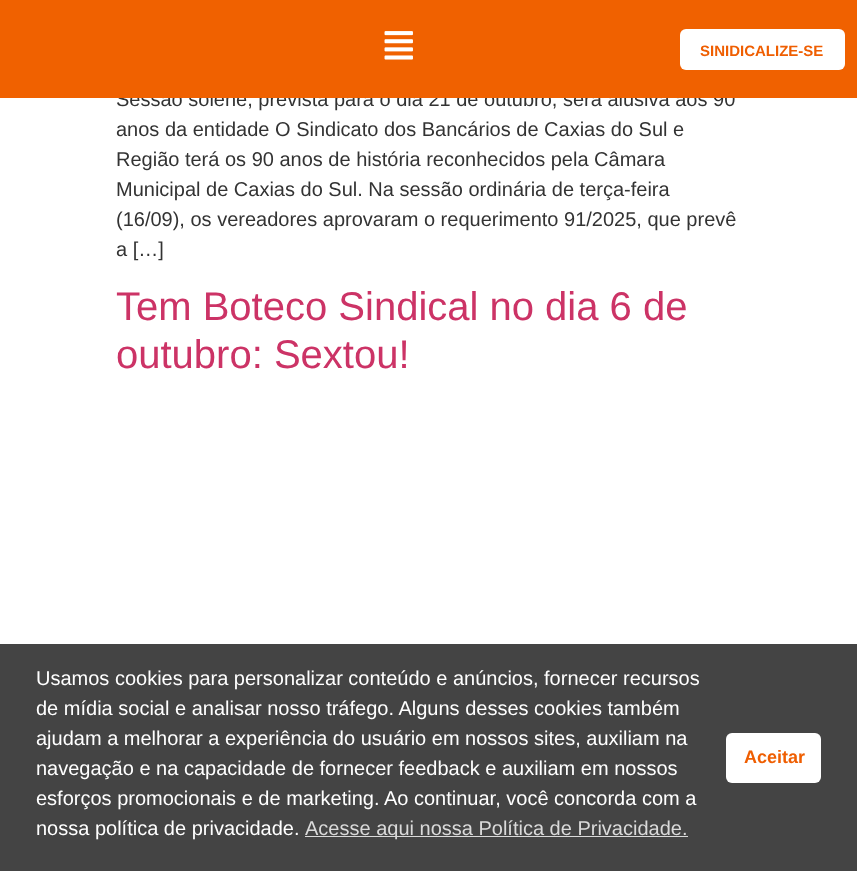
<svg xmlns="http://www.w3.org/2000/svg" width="857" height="871">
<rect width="100%" height="100%" fill="#fff"/>
<text x="116" y="106" style="font-family:Liberation Sans;font-size:20px;fill:#333">Sessão solene, prevista para o dia 21 de outubro, será alusiva aos 90</text>
<rect width="857" height="98" fill="#f06100"/>
<image x="384" y="31" width="29" height="29" href="media/1.png"/>
<rect x="680" y="29" width="165" height="41" rx="6" fill="#fff"/>
<text x="700" y="56" style="font-family:Liberation Sans;font-size:15px;font-weight:bold;fill:#ef5e01">SINIDICALIZE-SE</text>
<text x="116" y="136" style="font-family:Liberation Sans;font-size:20px;fill:#333">anos da entidade O Sindicato dos Bancários de Caxias do Sul e</text>
<text x="116" y="166" style="font-family:Liberation Sans;font-size:20px;fill:#333">Região terá os 90 anos de história reconhecidos pela Câmara</text>
<text x="116" y="196" style="font-family:Liberation Sans;font-size:20px;fill:#333">Municipal de Caxias do Sul. Na sessão ordinária de terça-feira</text>
<text x="116" y="226" style="font-family:Liberation Sans;font-size:20px;fill:#333">(16/09), os vereadores aprovaram o requerimento 91/2025, que prevê</text>
<text x="116" y="256" style="font-family:Liberation Sans;font-size:20px;fill:#333">a […]</text>
<text x="116" y="320" style="font-family:Liberation Sans;font-size:40px;fill:#c36">Tem Boteco Sindical no dia 6 de</text>
<text x="116" y="368" style="font-family:Liberation Sans;font-size:40px;fill:#c36">outubro: Sextou!</text>
<rect y="644" width="857" height="227" fill="#444"/>
<text x="36" y="685" style="font-family:Liberation Sans;font-size:20px;fill:#fff">Usamos cookies para personalizar conteúdo e anúncios, fornecer recursos</text>
<text x="36" y="715" style="font-family:Liberation Sans;font-size:20px;fill:#fff">de mídia social e analisar nosso tráfego. Alguns desses cookies também</text>
<text x="36" y="745" style="font-family:Liberation Sans;font-size:20px;fill:#fff">ajudam a melhorar a experiência do usuário em nossos sites, auxiliam na</text>
<text x="36" y="775" style="font-family:Liberation Sans;font-size:20px;fill:#fff">navegação e na capacidade de fornecer feedback e auxiliam em nossos</text>
<text x="36" y="805" style="font-family:Liberation Sans;font-size:20px;fill:#fff">esforços promocionais e de marketing. Ao continuar, você concorda com a</text>
<text x="36" y="835" style="font-family:Liberation Sans;font-size:20px;fill:#fff">nossa política de privacidade.</text>
<rect x="305" y="836" width="383" height="1" fill="#dadada"/>
<text x="305" y="835" style="font-family:Liberation Sans;font-size:20px;fill:#dadada">Acesse aqui nossa Política de Privacidade.</text>
<rect x="726" y="733" width="95" height="50" rx="6" fill="#fff"/>
<text x="744" y="763" style="font-family:Liberation Sans;font-size:18px;font-weight:bold;fill:#ef5e01">Aceitar</text>
</svg>
